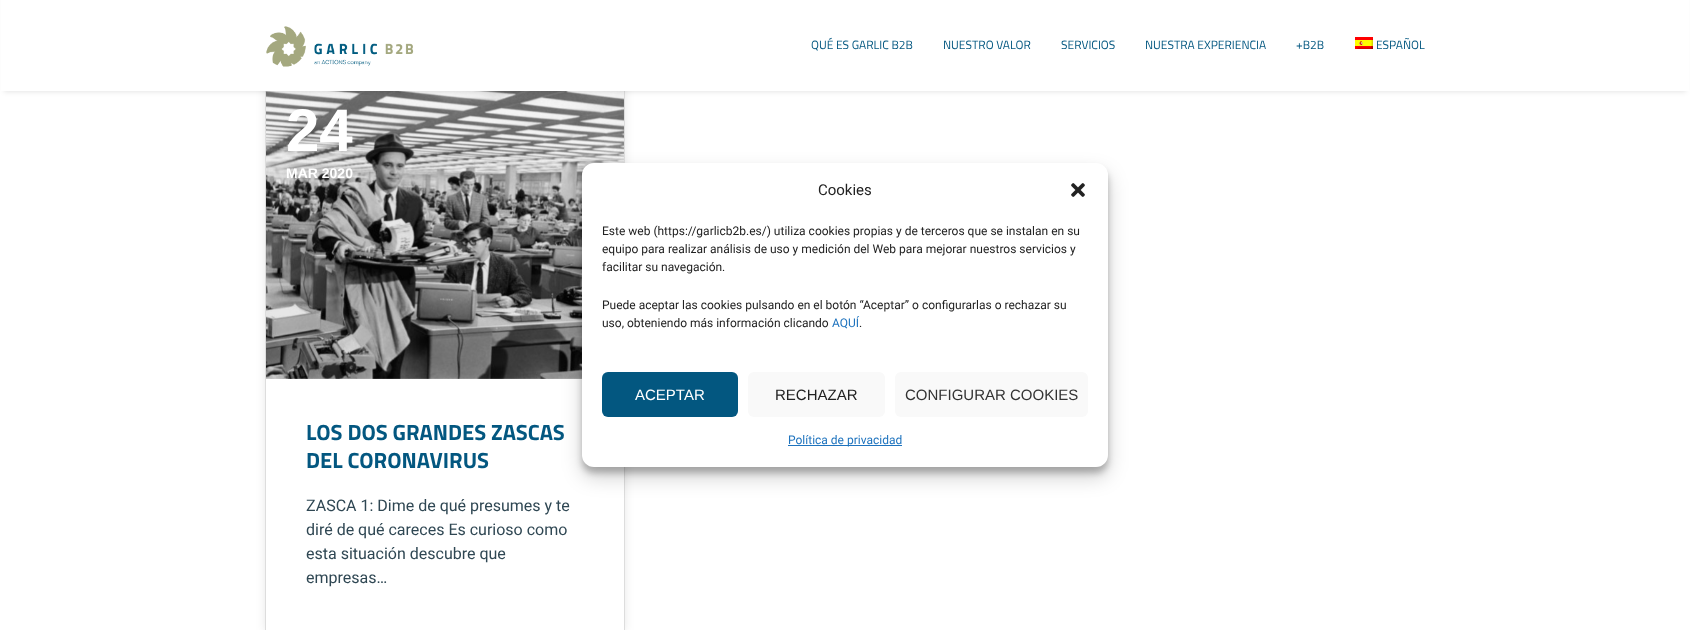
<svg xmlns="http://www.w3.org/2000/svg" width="1690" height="630">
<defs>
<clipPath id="clip1"><path d="M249 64h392v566h-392zm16 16h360v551h-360z" clip-rule="evenodd"/></clipPath>
</defs>
<rect width="100%" height="100%" fill="#fff"/>
<g clip-path="url(#clip1)">
<rect x="265" y="80" width="360" height="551" fill="#00000017" filter="blur(5px)"/>
</g>
<rect x="265.5" y="80.5" width="359" height="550" fill="none" stroke="#ddd"/>
<image x="266" y="91" width="358" height="288" href="media/3.png"/>
<rect x="4" y="-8" width="1682" height="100" fill="#0000001a" filter="blur(2.5px)"/>
<rect x="1" width="1688" height="91" fill="#fff"/>
<image x="266" y="26" width="148" height="41" href="media/1.png"/>
<text x="811" y="49" style="font-family:Titillium Web;font-size:12px;fill:#035780">QUÉ ES GARLIC B2B</text>
<text x="943" y="49" style="font-family:Titillium Web;font-size:12px;fill:#035780">NUESTRO VALOR</text>
<text x="1061" y="49" style="font-family:Titillium Web;font-size:12px;fill:#035780">SERVICIOS</text>
<text x="1145" y="49" style="font-family:Titillium Web;font-size:12px;fill:#035780">NUESTRA EXPERIENCIA</text>
<text x="1296" y="49" style="font-family:Titillium Web;font-size:12px;fill:#035780">+B2B</text>
<image x="1355" y="37" width="18" height="12" href="media/2.png"/>
<text x="1376" y="49" style="font-family:Titillium Web;font-size:12px;fill:#035780">ESPAÑOL</text>
<text x="286" y="151" style="font-family:Liberation Sans;font-size:60px;font-weight:bold;fill:#fff">24</text>
<text x="286" y="178" style="font-family:Liberation Sans;font-size:14px;font-weight:bold;fill:#fff">MAR 2020</text>
<text x="306" y="440" style="font-family:Titillium Web;font-size:22px;font-weight:bold;fill:#035780">LOS DOS GRANDES ZASCAS</text>
<text x="306" y="468" style="font-family:Titillium Web;font-size:22px;font-weight:bold;fill:#035780">DEL CORONAVIRUS</text>
<text x="306" y="511" style="font-family:Roboto;font-size:16px;fill:#2f4753">ZASCA 1: Dime de qué presumes y te</text>
<text x="306" y="535" style="font-family:Roboto;font-size:16px;fill:#2f4753">diré de qué careces Es curioso como</text>
<text x="306" y="559" style="font-family:Roboto;font-size:16px;fill:#2f4753">esta situación descubre que</text>
<text x="306" y="583" style="font-family:Roboto;font-size:16px;fill:#2f4753">empresas…</text>
<rect x="582" y="169" width="526" height="304" rx="12" fill="#0000003b" filter="blur(3px)"/>
<rect x="582" y="173" width="526" height="304" rx="12" fill="#00000030" filter="blur(10px)"/>
<rect x="582" y="163" width="526" height="304" rx="12" fill="#fff"/>
<text x="818" y="195" style="font-family:Roboto;font-size:15px;fill:#222">Cookies</text>
<image x="1071" y="183" width="14" height="14" href="media/4.png"/>
<text x="602" y="235" style="font-family:Roboto;font-size:12px;fill:#222">Este web (https://garlicb2b.es/) utiliza cookies propias y de terceros que se instalan en su</text>
<text x="602" y="253" style="font-family:Roboto;font-size:12px;fill:#222">equipo para realizar análisis de uso y medición del Web para mejorar nuestros servicios y</text>
<text x="602" y="271" style="font-family:Roboto;font-size:12px;fill:#222">facilitar su navegación.</text>
<text x="602" y="309" style="font-family:Roboto;font-size:12px;fill:#222">Puede aceptar las cookies pulsando en el botón “Aceptar” o configurarlas o rechazar su</text>
<text x="602" y="327" style="font-family:Roboto;font-size:12px;fill:#222">uso, obteniendo más información clicando</text>
<text x="832" y="327" style="font-family:Roboto;font-size:12px;fill:#1e73be">AQUÍ</text>
<text x="859" y="327" style="font-family:Roboto;font-size:12px;fill:#222">.</text>
<rect x="602" y="372" width="136" height="45" rx="6" fill="#035780"/>
<text x="635" y="400" style="font-family:Liberation Sans;font-size:15px;fill:#fff">ACEPTAR</text>
<rect x="748" y="372" width="137" height="45" rx="6" fill="#f9f9f9"/>
<text x="775" y="400" style="font-family:Liberation Sans;font-size:15px;fill:#222">RECHAZAR</text>
<rect x="895" y="372" width="193" height="45" rx="6" fill="#f9f9f9"/>
<text x="905" y="400" style="font-family:Liberation Sans;font-size:15px;fill:#333">CONFIGURAR COOKIES</text>
<rect x="788" y="445" width="114" height="1" fill="#1e73be"/>
<text x="788" y="444" style="font-family:Roboto;font-size:12px;fill:#1e73be">Política de privacidad</text>
</svg>
